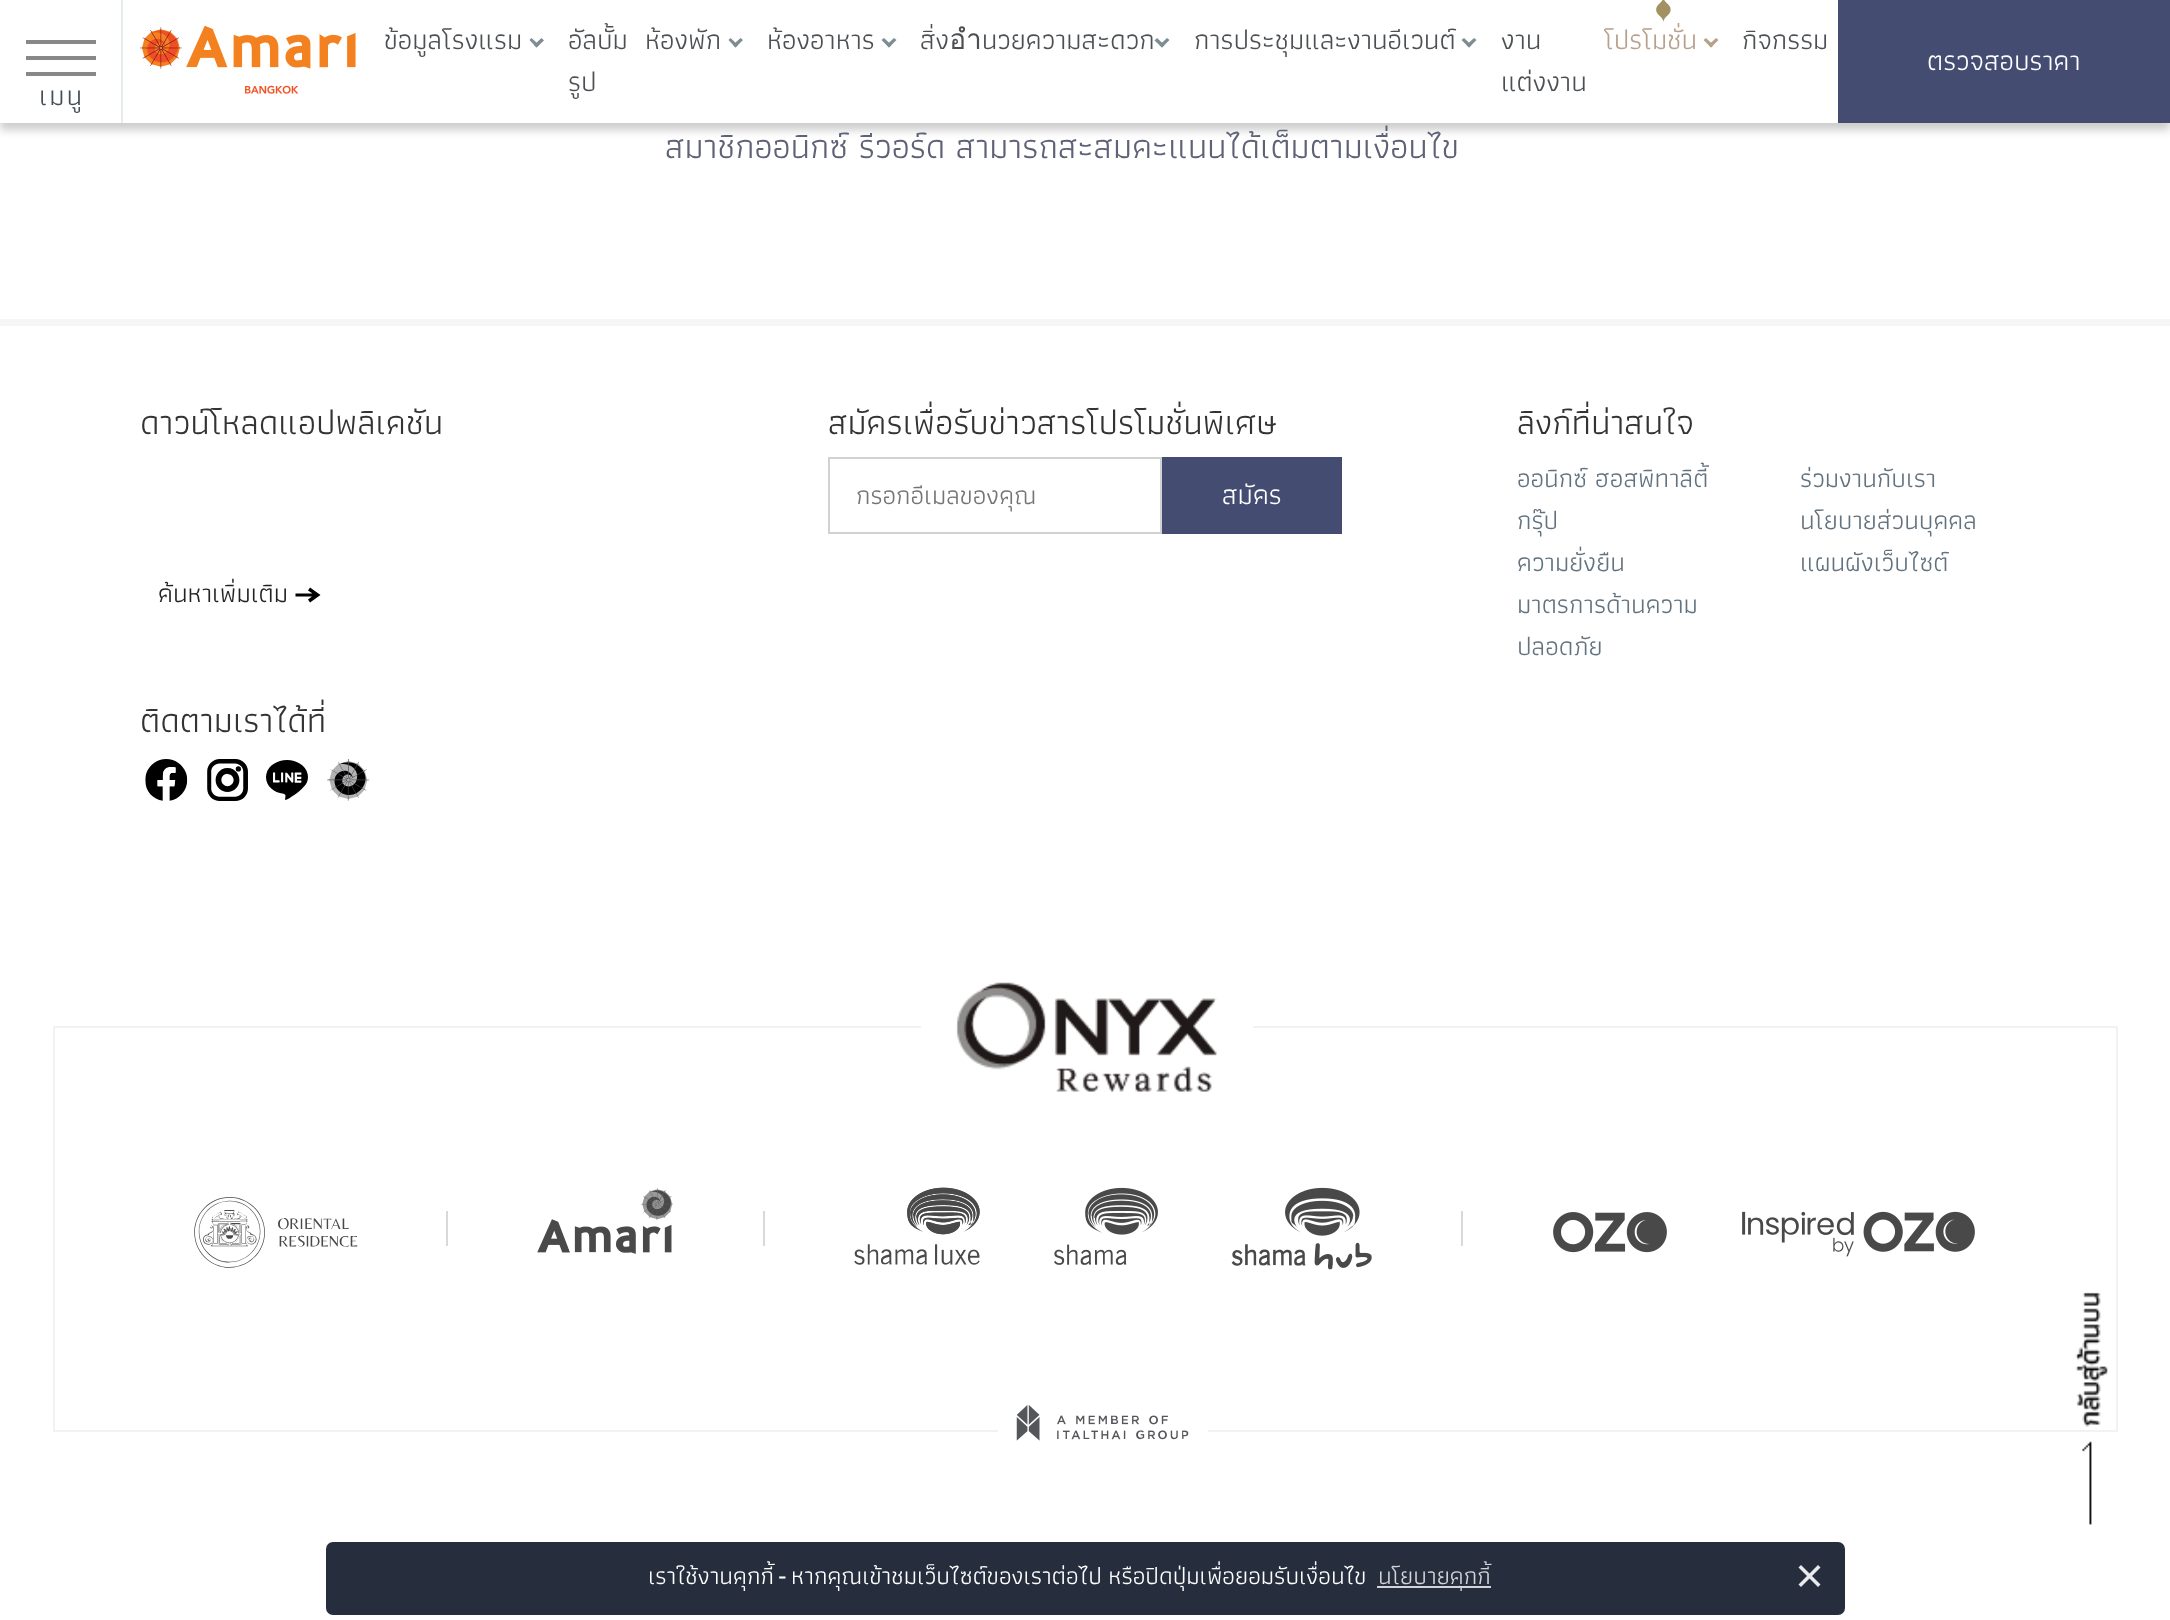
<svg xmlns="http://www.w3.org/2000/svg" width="2170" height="1620">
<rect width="100%" height="100%" fill="#fff"/>
<rect y="7" width="2170" height="123" fill="#00000033" filter="blur(4.5px)"/>
<rect width="1838" height="123" fill="#fff"/>
<image x="140" y="25" width="216" height="69" href="media/1.png"/>
<text x="384" y="49" style="font-family:Athiti;font-size:28px;fill:#4d5053">ข้อมูลโรงแรม</text>
<path d="M541.5 38l2.5 2.5l-7.5 7l-2.5-2.5z" fill="#7d8d92"/>
<path d="M531.5 38l7.5 7l-2.5 2.5l-7-7.5z" fill="#7d8d92"/>
<text x="568" y="49" style="font-family:Athiti;font-size:28px;fill:#4d5053">อัลบั้ม</text>
<text x="568" y="91" style="font-family:Athiti;font-size:28px;fill:#4d5053">รูป</text>
<text x="645" y="49" style="font-family:Athiti;font-size:28px;fill:#4d5053">ห้องพัก</text>
<path d="M740.5 38l2.5 2l-7.5 7.5l-2.5-2.5z" fill="#7d8d92"/>
<path d="M730.5 38l7.5 7l-2.5 2.5l-7-7.5z" fill="#7d8d92"/>
<text x="767" y="49" style="font-family:Athiti;font-size:28px;fill:#4d5053">ห้องอาหาร</text>
<path d="M894 38l2.5 2l-7.5 7.5l-2.5-2.5z" fill="#7d8d92"/>
<path d="M884 38l7.5 7l-2.5 2.5l-7.5-7.5z" fill="#7d8d92"/>
<text x="920" y="49" style="font-family:Athiti;font-size:28px;fill:#4d5053">สิ่งอำนวยความสะดวก</text>
<path d="M1167 38l2.5 2l-7.5 7.5l-2.5-2.5z" fill="#7d8d92"/>
<path d="M1157 38l7.5 7l-2.5 2.5l-7.5-7z" fill="#7d8d92"/>
<text x="1194" y="49" style="font-family:Athiti;font-size:28px;fill:#4d5053">การประชุมและงานอีเวนต์</text>
<path d="M1474 38l2.5 2l-7.5 7.5l-2.5-2.5z" fill="#7d8d92"/>
<path d="M1464 38l7.5 7l-2.5 2.5l-7.5-7.5z" fill="#7d8d92"/>
<text x="1501" y="49" style="font-family:Athiti;font-size:28px;fill:#4d5053">งาน</text>
<text x="1501" y="91" style="font-family:Athiti;font-size:28px;fill:#4d5053">แต่งงาน</text>
<image x="1656" y="0" width="15" height="22" href="media/2.png"/>
<text x="1604" y="49" style="font-family:Athiti;font-size:28px;fill:#b7a18b">โปรโมชั่น</text>
<path d="M1716 38l2.5 2l-7.5 7.5l-2.5-2.5z" fill="#b7a18b"/>
<path d="M1706 38l7.5 7l-2.5 2.5l-7.5-7.5z" fill="#b7a18b"/>
<text x="1742" y="49" style="font-family:Athiti;font-size:28px;fill:#4d5053">กิจกรรม</text>
<rect x="1838" width="332" height="123" fill="#444c72"/>
<text x="1927" y="70" style="font-family:Athiti;font-size:28px;fill:#fff">ตรวจสอบราคา</text>
<rect x="121" width="2" height="123" fill="#e6ebeb"/>
<rect x="26" y="56" width="70" height="4" fill="#888"/>
<rect x="26" y="40" width="70" height="4" fill="#888"/>
<rect x="26" y="72" width="70" height="4" fill="#888"/>
<text x="39" y="105" style="font-family:Athiti;font-size:28px;letter-spacing:2px;fill:#434e58">เมนู</text>
<text x="665" y="158" style="font-family:Athiti;font-size:35px;fill:#5f6277">สมาชิกออนิกซ์ รีวอร์ด สามารถสะสมคะแนนได้เต็มตามเงื่อนไข</text>
<rect y="319" width="2170" height="7" fill="#f6f6f7"/>
<text x="140" y="434" style="font-family:Athiti;font-size:35px;fill:#333">ดาวน์โหลดแอปพลิเคชัน</text>
<text x="158" y="602" style="font-family:Athiti;font-size:26.25px;fill:#222">ค้นหาเพิ่มเติม</text>
<path d="M310 587.5l-2 3l4.5 3h-17v3h16.5l-4 3l2 3l10.5-7.5z" fill="#000"/>
<text x="828" y="434" style="font-family:Athiti;font-size:35px;fill:#333">สมัครเพื่อรับข่าวสารโปรโมชั่นพิเศษ</text>
<rect x="829" y="458" width="332" height="75" fill="none" stroke="#d2d2d2" stroke-width="2"/>
<text x="856" y="504" style="font-family:Athiti;font-size:26.25px;fill:#757575">กรอกอีเมลของคุณ</text>
<rect x="1162" y="457" width="180" height="77" fill="#444c72"/>
<text x="1222" y="504" style="font-family:Athiti;font-size:28px;fill:#fff">สมัคร</text>
<text x="1517" y="434" style="font-family:Athiti;font-size:35px;fill:#333">ลิงก์ที่น่าสนใจ</text>
<text x="1517" y="487" style="font-family:Athiti;font-size:26.25px;fill:#62737f">ออนิกซ์ ฮอสพิทาลิตี้</text>
<text x="1517" y="529" style="font-family:Athiti;font-size:26.25px;fill:#62737f">กรุ๊ป</text>
<text x="1517" y="571" style="font-family:Athiti;font-size:26.25px;fill:#62737f">ความยั่งยืน</text>
<text x="1517" y="613" style="font-family:Athiti;font-size:26.25px;fill:#62737f">มาตรการด้านความ</text>
<text x="1517" y="655" style="font-family:Athiti;font-size:26.25px;fill:#62737f">ปลอดภัย</text>
<text x="1800" y="487" style="font-family:Athiti;font-size:26.25px;fill:#62737f">ร่วมงานกับเรา</text>
<text x="1800" y="529" style="font-family:Athiti;font-size:26.25px;fill:#62737f">นโยบายส่วนบุคคล</text>
<text x="1800" y="571" style="font-family:Athiti;font-size:26.25px;fill:#62737f">แผนผังเว็บไซต์</text>
<text x="140" y="732" style="font-family:Athiti;font-size:35px;fill:#333">ติดตามเราได้ที่</text>
<image x="145" y="759" width="43" height="42" href="media/3.png"/>
<image x="207" y="759" width="41" height="42" href="media/4.png"/>
<image x="266" y="760" width="42" height="40" href="media/5.png"/>
<image x="327" y="759" width="43" height="42" href="media/6.png"/>
<rect x="54" y="1027" width="2063" height="404" fill="none" stroke="#f2f2f2" stroke-width="2"/>
<rect x="921" y="1026" width="332" height="2" fill="#fff"/>
<image x="956" y="982" width="261" height="110" href="media/7.png"/>
<image x="194" y="1197" width="164" height="71" href="media/8.png"/>
<rect x="446" y="1211" width="2" height="35" fill="#d9d9d9"/>
<image x="537" y="1188" width="136" height="66" href="media/9.png"/>
<rect x="763" y="1211" width="2" height="35" fill="#d9d9d9"/>
<image x="854" y="1187" width="126" height="78" href="media/10.png"/>
<image x="1054" y="1187" width="104" height="78" href="media/11.png"/>
<image x="1231" y="1187" width="141" height="83" href="media/12.png"/>
<rect x="1461" y="1211" width="2" height="35" fill="#d9d9d9"/>
<image x="1553" y="1212" width="114" height="41" href="media/13.png"/>
<image x="1742" y="1211" width="233" height="46" href="media/14.png"/>
<rect x="998" y="1430" width="210" height="2" fill="#fff"/>
<image x="1016" y="1405" width="173" height="36" href="media/15.png"/>
<image x="2075" y="1292" width="33" height="233" href="media/16.png"/>
<rect x="326" y="1542" width="1519" height="73" rx="7" fill="#262d3d"/>
<text x="648" y="1584" style="font-family:Athiti;font-size:24.5px;fill:#fff">เราใช้งานคุกกี้</text>
<text x="778" y="1584" style="font-family:Signika;font-size:24.5px;fill:#fff">-</text>
<text x="791" y="1584" word-spacing="-1" style="font-family:Athiti;font-size:24.5px;fill:#fff">หากคุณเข้าชมเว็บไซต์ของเราต่อไป หรือปิดปุ่มเพื่อยอมรับเงื่อนไข</text>
<rect x="1377" y="1586" width="114" height="2" fill="#d4d5d8"/>
<text x="1378" y="1584" style="font-family:Athiti;font-size:24.5px;fill:#d4d5d8">นโยบายคุกกี้</text>
<path d="M1801 1565l19.5 19.5l-2.5 2.5l-19.5-19.5z" fill="#e9eaec"/>
<path d="M1818 1565l2.5 2.5l-19.5 19.5l-2.5-2.5z" fill="#e9eaec"/>
</svg>
